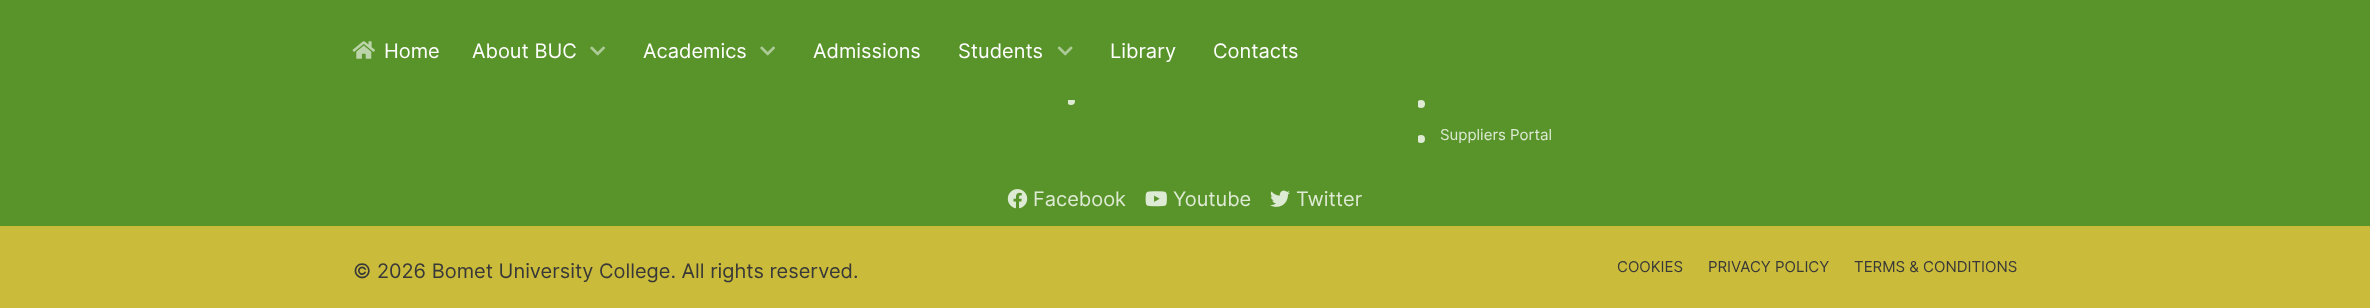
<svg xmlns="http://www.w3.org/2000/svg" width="2370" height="308">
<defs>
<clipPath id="clip1"><rect x="1068" y="98" width="7" height="7"/></clipPath>
<clipPath id="clip2"><rect x="1418" y="100" width="7" height="8"/></clipPath>
<clipPath id="clip3"><rect x="1418" y="135" width="7" height="8"/></clipPath>
</defs>
<rect width="100%" height="100%" fill="#58942a"/>
<g clip-path="url(#clip1)">
<circle cx="1071" cy="101" r="4" fill="#deead4"/>
</g>
<rect x="1068" y="98" width="7" height="2" fill="#58942a"/>
<image x="352" y="41" width="23" height="18" href="media/1.png"/>
<text x="384" y="58" style="font-family:Inter;font-size:20px;fill:#fff">Home</text>
<text x="472" y="58" style="font-family:Inter;font-size:20px;fill:#fff">About BUC</text>
<image x="590" y="46" width="15" height="10" href="media/2.png"/>
<text x="643" y="58" style="font-family:Inter;font-size:20px;fill:#fff">Academics</text>
<image x="760" y="46" width="15" height="10" href="media/2.png"/>
<text x="813" y="58" style="font-family:Inter;font-size:20px;fill:#fff">Admissions</text>
<text x="958" y="58" style="font-family:Inter;font-size:20px;fill:#fff">Students</text>
<image x="1057" y="46" width="16" height="10" href="media/3.png"/>
<text x="1110" y="58" style="font-family:Inter;font-size:20px;fill:#fff">Library</text>
<text x="1213" y="58" style="font-family:Inter;font-size:20px;fill:#fff">Contacts</text>
<g clip-path="url(#clip2)">
<circle cx="1421" cy="104" r="4" fill="#deead4"/>
</g>
<g clip-path="url(#clip3)">
<circle cx="1421" cy="139" r="4" fill="#deead4"/>
</g>
<text x="1440" y="140" style="font-family:Inter;font-size:15px;fill:#deead4">Suppliers Portal</text>
<image x="1007" y="189" width="21" height="20" href="media/4.png"/>
<text x="1033" y="206" style="font-family:Inter;font-size:20px;fill:#deead4">Facebook</text>
<image x="1145" y="191" width="22" height="16" href="media/5.png"/>
<text x="1173" y="206" style="font-family:Inter;font-size:20px;fill:#deead4">Youtube</text>
<image x="1270" y="190" width="20" height="17" href="media/6.png"/>
<text x="1296" y="206" style="font-family:Inter;font-size:20px;fill:#deead4">Twitter</text>
<rect y="226" width="2370" height="82" fill="#cabb3b"/>
<text x="353" y="278" style="font-family:Inter;font-size:20px;fill:#383838">© 2026 Bomet University College. All rights reserved.</text>
<text x="1617" y="272" style="font-family:Inter;font-size:15px;fill:#383838">COOKIES</text>
<text x="1708" y="272" style="font-family:Inter;font-size:15px;fill:#383838">PRIVACY POLICY</text>
<text x="1854" y="272" style="font-family:Inter;font-size:15px;fill:#383838">TERMS &amp; CONDITIONS</text>
</svg>
